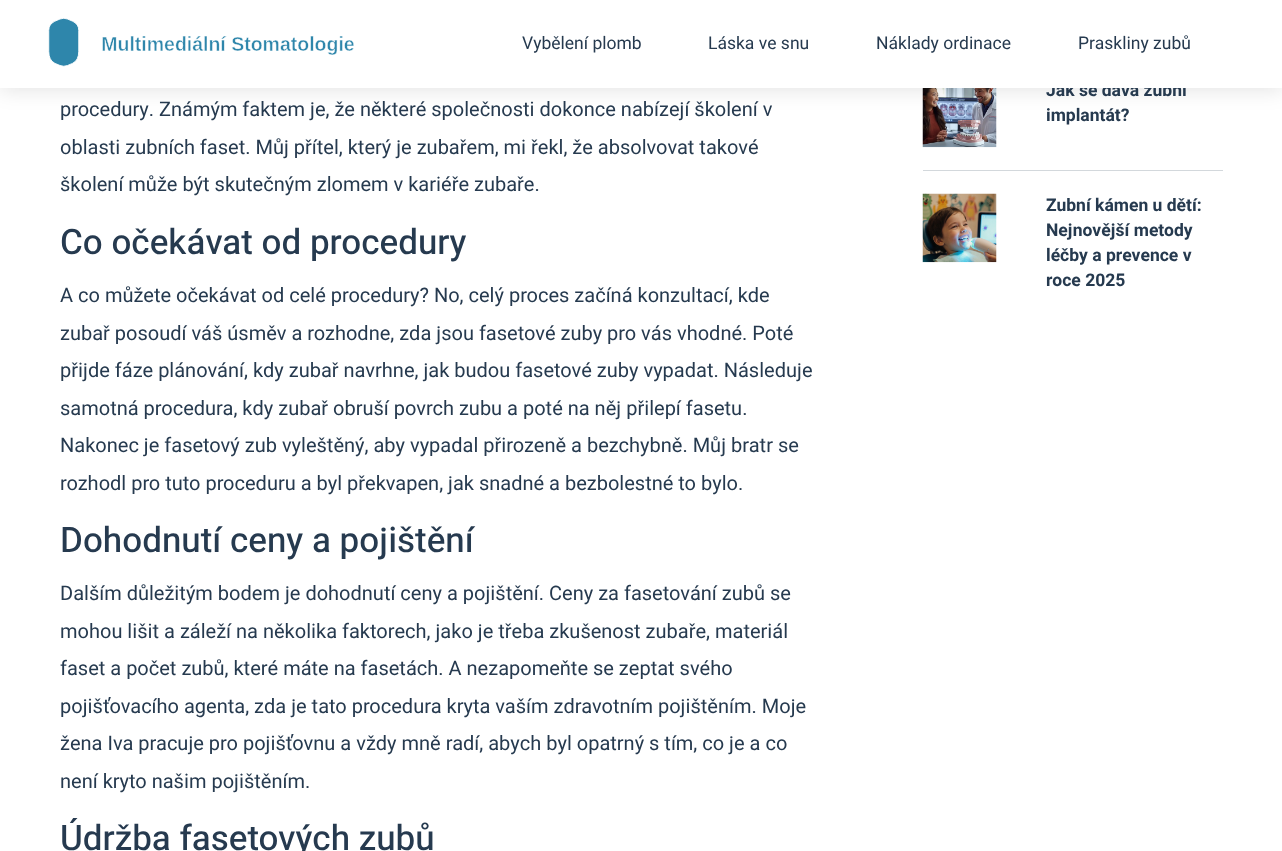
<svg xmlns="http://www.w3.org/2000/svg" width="1282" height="851">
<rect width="100%" height="100%" fill="#fff"/>
<image x="922" y="88" width="75" height="60" href="media/2.png"/>
<rect y="4" width="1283" height="87" fill="#0000001a" filter="blur(10px)"/>
<text x="1046" y="96" style="font-family:Heebo;font-size:17.5px;font-weight:bold;fill:#263a4f">Jak se dává zubní</text>
<rect width="1282" height="88" fill="#fff"/>
<image x="48" y="18" width="306" height="49" href="media/1.png"/>
<text x="522" y="49" style="font-family:Heebo;font-size:17.5px;fill:#263a4f">Vybělení plomb</text>
<text x="708" y="49" style="font-family:Heebo;font-size:17.5px;fill:#263a4f">Láska ve snu</text>
<text x="876" y="49" style="font-family:Heebo;font-size:17.5px;fill:#263a4f">Náklady ordinace</text>
<text x="1078" y="49" style="font-family:Heebo;font-size:17.5px;fill:#263a4f">Praskliny zubů</text>
<text x="60" y="116" style="font-family:Heebo;font-size:20px;fill:#263a4f">procedury. Známým faktem je, že některé společnosti dokonce nabízejí školení v</text>
<text x="60" y="154" style="font-family:Heebo;font-size:20px;fill:#263a4f">oblasti zubních faset. Můj přítel, který je zubařem, mi řekl, že absolvovat takové</text>
<text x="60" y="191" style="font-family:Heebo;font-size:20px;fill:#263a4f">školení může být skutečným zlomem v kariéře zubaře.</text>
<text x="60" y="254" style="font-family:Heebo;font-size:35px;font-weight:500;fill:#263a4f">Co očekávat od procedury</text>
<text x="60" y="302" style="font-family:Heebo;font-size:20px;fill:#263a4f">A co můžete očekávat od celé procedury? No, celý proces začíná konzultací, kde</text>
<text x="60" y="340" style="font-family:Heebo;font-size:20px;fill:#263a4f">zubař posoudí váš úsměv a rozhodne, zda jsou fasetové zuby pro vás vhodné. Poté</text>
<text x="60" y="377" style="font-family:Heebo;font-size:20px;fill:#263a4f">přijde fáze plánování, kdy zubař navrhne, jak budou fasetové zuby vypadat. Následuje</text>
<text x="60" y="415" style="font-family:Heebo;font-size:20px;fill:#263a4f">samotná procedura, kdy zubař obruší povrch zubu a poté na něj přilepí fasetu.</text>
<text x="60" y="452" style="font-family:Heebo;font-size:20px;fill:#263a4f">Nakonec je fasetový zub vyleštěný, aby vypadal přirozeně a bezchybně. Můj bratr se</text>
<text x="60" y="490" style="font-family:Heebo;font-size:20px;fill:#263a4f">rozhodl pro tuto proceduru a byl překvapen, jak snadné a bezbolestné to bylo.</text>
<text x="60" y="552" style="font-family:Heebo;font-size:35px;font-weight:500;fill:#263a4f">Dohodnutí ceny a pojištění</text>
<text x="60" y="600" style="font-family:Heebo;font-size:20px;fill:#263a4f">Dalším důležitým bodem je dohodnutí ceny a pojištění. Ceny za fasetování zubů se</text>
<text x="60" y="638" style="font-family:Heebo;font-size:20px;fill:#263a4f">mohou lišit a záleží na několika faktorech, jako je třeba zkušenost zubaře, materiál</text>
<text x="60" y="675" style="font-family:Heebo;font-size:20px;fill:#263a4f">faset a počet zubů, které máte na fasetách. A nezapomeňte se zeptat svého</text>
<text x="60" y="713" style="font-family:Heebo;font-size:20px;fill:#263a4f">pojišťovacího agenta, zda je tato procedura kryta vaším zdravotním pojištěním. Moje</text>
<text x="60" y="750" style="font-family:Heebo;font-size:20px;fill:#263a4f">žena Iva pracuje pro pojišťovnu a vždy mně radí, abych byl opatrný s tím, co je a co</text>
<text x="60" y="788" style="font-family:Heebo;font-size:20px;fill:#263a4f">není kryto našim pojištěním.</text>
<text x="60" y="850" style="font-family:Heebo;font-size:35px;font-weight:500;fill:#263a4f">Údržba fasetových zubů</text>
<rect x="923" y="170" width="300" height="1" fill="#d3d8dc"/>
<text x="1046" y="121" style="font-family:Heebo;font-size:17.5px;font-weight:bold;fill:#263a4f">implantát?</text>
<image x="922" y="193" width="75" height="70" href="media/3.png"/>
<text x="1046" y="211" style="font-family:Heebo;font-size:17.5px;font-weight:bold;fill:#263a4f">Zubní kámen u dětí:</text>
<text x="1046" y="236" style="font-family:Heebo;font-size:17.5px;font-weight:bold;fill:#263a4f">Nejnovější metody</text>
<text x="1046" y="261" style="font-family:Heebo;font-size:17.5px;font-weight:bold;fill:#263a4f">léčby a prevence v</text>
<text x="1046" y="286" style="font-family:Heebo;font-size:17.5px;font-weight:bold;fill:#263a4f">roce 2025</text>
</svg>
